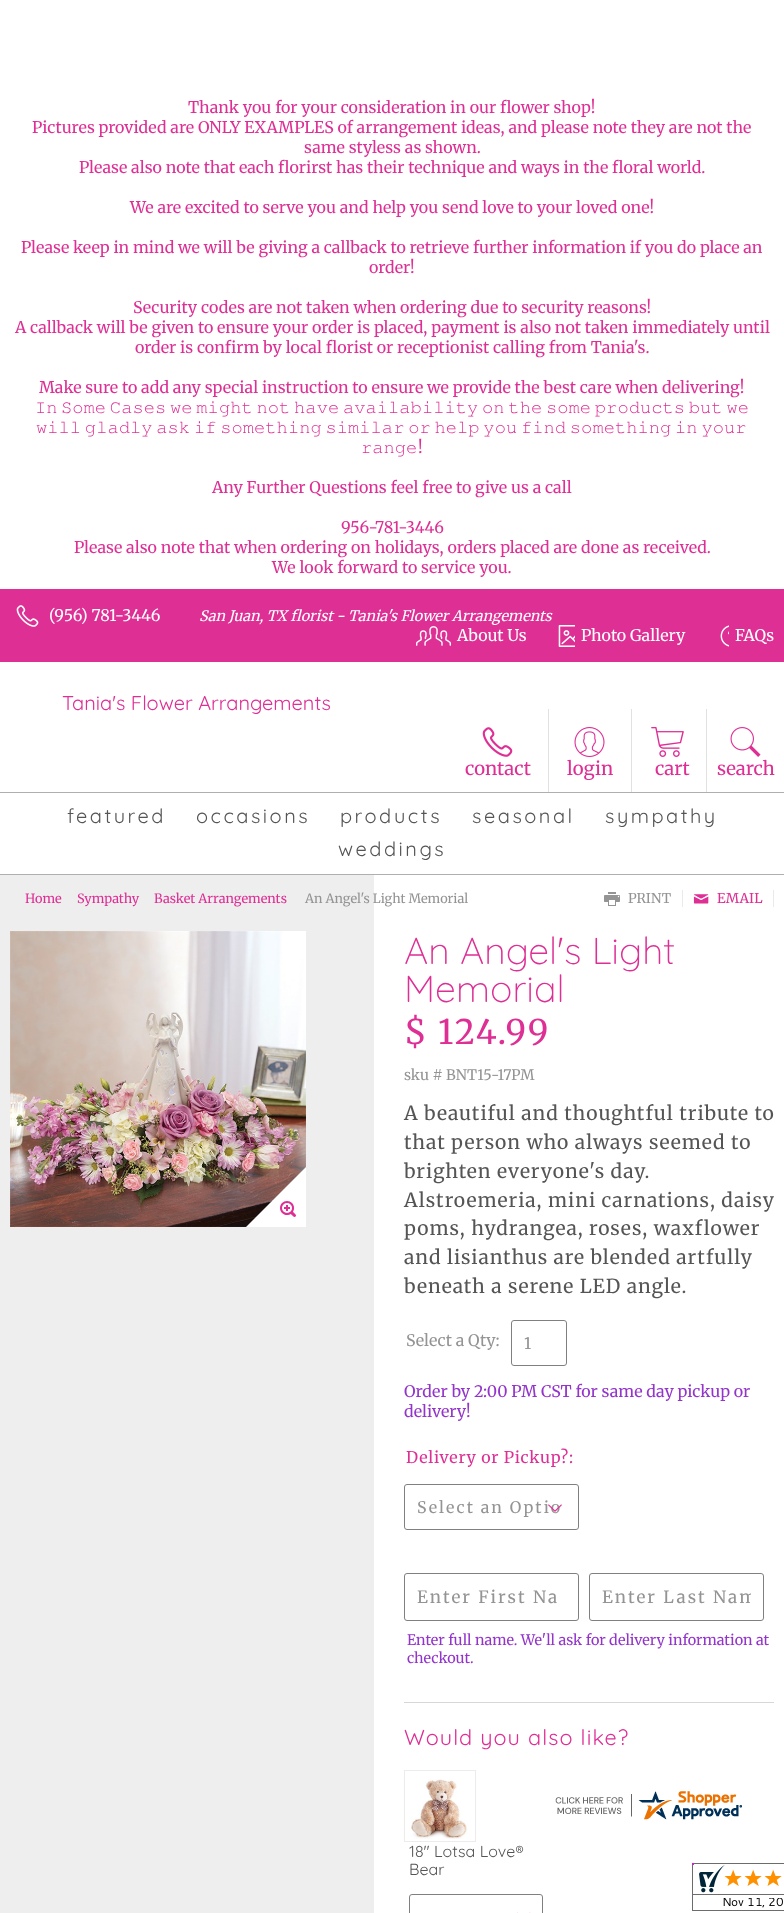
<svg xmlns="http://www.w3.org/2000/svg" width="784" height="1913">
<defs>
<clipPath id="clip1"><rect x="602" y="1586" width="149" height="22"/></clipPath>
</defs>
<rect width="100%" height="100%" fill="#fff"/>
<rect y="589" width="784" height="73" fill="#de2f95"/>
<text x="188" y="113" style="font-family:Merriweather;font-size:16px;fill:#de2f95">Thank you for your consideration in our flower shop!</text>
<text x="32" y="133" style="font-family:Merriweather;font-size:16px;fill:#de2f95">Pictures provided are ONLY EXAMPLES of arrangement ideas, and please note they are not the</text>
<text x="304" y="153" style="font-family:Merriweather;font-size:16px;fill:#de2f95">same styless as shown.</text>
<text x="79" y="173" style="font-family:Merriweather;font-size:16px;fill:#de2f95">Please also note that each florirst has their technique and ways in the floral world.</text>
<text x="130" y="213" style="font-family:Merriweather;font-size:16px;fill:#de2f95">We are excited to serve you and help you send love to your loved one!</text>
<text x="21" y="253" style="font-family:Merriweather;font-size:16px;fill:#de2f95">Please keep in mind we will be giving a callback to retrieve further information if you do place an</text>
<text x="369" y="273" style="font-family:Merriweather;font-size:16px;fill:#de2f95">order!</text>
<text x="133" y="313" style="font-family:Merriweather;font-size:16px;fill:#de2f95">Security codes are not taken when ordering due to security reasons!</text>
<text x="15" y="333" style="font-family:Merriweather;font-size:16px;fill:#de2f95">A callback will be given to ensure your order is placed, payment is also not taken immediately until</text>
<text x="135" y="353" style="font-family:Merriweather;font-size:16px;fill:#de2f95">order is confirm by local florist or receptionist calling from Tania's.</text>
<text x="39" y="393" style="font-family:Merriweather;font-size:16px;fill:#de2f95">Make sure to add any special instruction to ensure we provide the best care when delivering!</text>
<text x="35" y="413" style="font-family:FreeSerif;font-size:16px;fill:#de2f95">𝙸𝚗</text>
<text x="61" y="413" word-spacing="-0.25" style="font-family:FreeSerif;font-size:16px;fill:#de2f95">𝚂𝚘𝚖𝚎 𝙲𝚊𝚜𝚎𝚜 𝚠𝚎 𝚖𝚒𝚐𝚑𝚝 𝚗𝚘𝚝 𝚑𝚊𝚟𝚎 𝚊𝚟𝚊𝚒𝚕𝚊𝚋𝚒𝚕𝚒𝚝𝚢 𝚘𝚗 𝚝𝚑𝚎 𝚜𝚘𝚖𝚎 𝚙𝚛𝚘𝚍𝚞𝚌𝚝𝚜 𝚋𝚞𝚝 𝚠𝚎</text>
<text x="36" y="433" word-spacing="-0.25" style="font-family:FreeSerif;font-size:16px;fill:#de2f95">𝚠𝚒𝚕𝚕 𝚐𝚕𝚊𝚍𝚕𝚢 𝚊𝚜𝚔 𝚒𝚏 𝚜𝚘𝚖𝚎𝚝𝚑𝚒𝚗𝚐 𝚜𝚒𝚖𝚒𝚕𝚊𝚛 𝚘𝚛 𝚑𝚎𝚕𝚙 𝚢𝚘𝚞 𝚏𝚒𝚗𝚍 𝚜𝚘𝚖𝚎𝚝𝚑𝚒𝚗𝚐 𝚒𝚗 𝚢𝚘𝚞𝚛</text>
<text x="361" y="453" style="font-family:FreeSerif;font-size:16px;fill:#de2f95">𝚛𝚊𝚗𝚐𝚎</text>
<text x="418" y="453" style="font-family:Merriweather;font-size:16px;fill:#de2f95">!</text>
<text x="212" y="493" style="font-family:Merriweather;font-size:16px;fill:#de2f95">Any Further Questions feel free to give us a call</text>
<text x="341" y="533" style="font-family:Merriweather;font-size:16px;fill:#de2f95">956-781-3446</text>
<text x="74" y="553" style="font-family:Merriweather;font-size:16px;fill:#de2f95">Please also note that when ordering on holidays, orders placed are done as received.</text>
<text x="272" y="573" style="font-family:Merriweather;font-size:16px;fill:#de2f95">We look forward to service you.</text>
<image x="16" y="605" width="23" height="22" href="media/1.png"/>
<text x="49" y="621" style="font-family:Merriweather;font-size:16px;fill:#fff">(956) 781-3446</text>
<text x="199" y="621" style="font-family:Merriweather;font-size:14.4px;font-style:italic;fill:#fff">San Juan, TX florist - Tania's Flower Arrangements</text>
<image x="416" y="626" width="35" height="20" href="media/2.png"/>
<text x="457" y="641" style="font-family:Merriweather;font-size:16px;fill:#fff">About Us</text>
<image x="558" y="625" width="17" height="22" href="media/3.png"/>
<text x="581" y="641" style="font-family:Merriweather;font-size:16px;fill:#fff">Photo Gallery</text>
<image x="720" y="625" width="9" height="22" href="media/4.png"/>
<text x="735" y="641" style="font-family:Merriweather;font-size:16px;fill:#fff">FAQs</text>
<text x="62" y="710" style="font-family:Quicksand;font-size:20px;fill:#de2f95">Tania's Flower Arrangements</text>
<image x="482" y="727" width="31" height="30" href="media/5.png"/>
<text x="465" y="775" style="font-family:Merriweather;font-size:18.5px;fill:#de2f95">contact</text>
<rect x="631" y="709" width="1" height="83" fill="#e1e1e1"/>
<rect x="548" y="709" width="1" height="83" fill="#e1e1e1"/>
<image x="574" y="727" width="31" height="30" href="media/6.png"/>
<text x="567" y="775" style="font-family:Merriweather;font-size:18.5px;fill:#de2f95">login</text>
<image x="651" y="727" width="33" height="30" href="media/7.png"/>
<text x="655" y="775" style="font-family:Merriweather;font-size:18.5px;fill:#de2f95">cart</text>
<rect x="706" y="709" width="1" height="83" fill="#e1e1e1"/>
<image x="730" y="727" width="31" height="30" href="media/8.png"/>
<text x="717" y="775" style="font-family:Merriweather;font-size:18.5px;fill:#de2f95">search</text>
<rect y="792" width="784" height="1" fill="#afafaf"/>
<rect y="874" width="784" height="1" fill="#afafaf"/>
<text x="67" y="823" style="font-family:Quicksand;font-size:20px;letter-spacing:2.5px;fill:#555">featured</text>
<text x="196" y="823" style="font-family:Quicksand;font-size:20px;letter-spacing:2.5px;fill:#555">occasions</text>
<text x="340" y="823" style="font-family:Quicksand;font-size:20px;letter-spacing:2.5px;fill:#555">products</text>
<text x="472" y="823" style="font-family:Quicksand;font-size:20px;letter-spacing:2.5px;fill:#555">seasonal</text>
<text x="605" y="823" style="font-family:Quicksand;font-size:20px;letter-spacing:2.5px;fill:#555">sympathy</text>
<text x="338" y="856" style="font-family:Quicksand;font-size:20px;letter-spacing:2.5px;fill:#555">weddings</text>
<rect y="875" width="374" height="1038" fill="#eee"/>
<text x="25" y="903" style="font-family:Merriweather;font-size:12.75px;fill:#de2f95">Home</text>
<text x="77" y="903" style="font-family:Merriweather;font-size:12.75px;fill:#de2f95">Sympathy</text>
<text x="154" y="903" style="font-family:Merriweather;font-size:12.75px;fill:#de2f95">Basket Arrangements</text>
<text x="305" y="903" style="font-family:Merriweather;font-size:12.75px;fill:#949494">An Angel's Light Memorial</text>
<text x="604" y="906" style="font-family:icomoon;font-size:16px;fill:#949494">4</text>
<text x="628" y="903" style="font-family:Merriweather;font-size:13.5px;fill:#949494">PRINT</text>
<rect x="773" y="890" width="1" height="17" fill="#eaeaea"/>
<rect x="682" y="890" width="1" height="17" fill="#eaeaea"/>
<text x="693" y="906" style="font-family:icomoon;font-size:16px;fill:#de2f95">&lt;</text>
<text x="717" y="903" style="font-family:Merriweather;font-size:13.5px;fill:#de2f95">EMAIL</text>
<image x="10" y="931" width="296" height="296" href="media/9.png"/>
<path d="M306 1167v60h-60z" fill="#fff"/>
<text x="280" y="1216" style="font-family:icomoon;font-size:16px;fill:#de2f95">-</text>
<text x="404" y="964" style="font-family:Quicksand;font-size:37.5px;font-weight:300;fill:#de2f95">An Angel's Light</text>
<text x="404" y="1002" style="font-family:Quicksand;font-size:37.5px;font-weight:300;fill:#de2f95">Memorial</text>
<text x="404" y="1044" style="font-family:Merriweather;font-size:34px;letter-spacing:1.75px;fill:#de2f95">$ 124.99</text>
<text x="404" y="1080" style="font-family:Merriweather;font-size:14.4px;fill:#949494">sku # BNT15-17PM</text>
<text x="404" y="1120" style="font-family:Merriweather;font-size:19.25px;letter-spacing:0.95px;fill:#555">A beautiful and thoughtful tribute to</text>
<text x="404" y="1149" style="font-family:Merriweather;font-size:19.25px;letter-spacing:0.95px;fill:#555">that person who always seemed to</text>
<text x="404" y="1178" style="font-family:Merriweather;font-size:19.25px;letter-spacing:0.95px;fill:#555">brighten everyone's day.</text>
<text x="404" y="1207" style="font-family:Merriweather;font-size:19.25px;letter-spacing:0.95px;fill:#555">Alstroemeria, mini carnations, daisy</text>
<text x="404" y="1235" style="font-family:Merriweather;font-size:19.25px;letter-spacing:0.95px;fill:#555">poms, hydrangea, roses, waxflower</text>
<text x="404" y="1264" style="font-family:Merriweather;font-size:19.25px;letter-spacing:0.95px;fill:#555">and lisianthus are blended artfully</text>
<text x="404" y="1293" style="font-family:Merriweather;font-size:19.25px;letter-spacing:0.95px;fill:#555">beneath a serene LED angle.</text>
<text x="406" y="1346" style="font-family:Merriweather;font-size:16px;fill:#949494">Select a Qty:</text>
<rect x="511.5" y="1320.5" width="55" height="45" rx="2.5" fill="none" stroke="#808080"/>
<text x="524" y="1349" style="font-family:Merriweather;font-size:16px;letter-spacing:2px;fill:#949494">1</text>
<text x="404" y="1397" style="font-family:Merriweather;font-size:16px;fill:#9334ca">Order by 2:00 PM CST for same day pickup or</text>
<text x="404" y="1417" style="font-family:Merriweather;font-size:16px;fill:#9334ca">delivery!</text>
<text x="406" y="1463" style="font-family:Merriweather;font-size:16px;letter-spacing:0.75px;fill:#de2f95">Delivery or Pickup?</text>
<text x="569" y="1463" style="font-family:Merriweather;font-size:16px;letter-spacing:0.75px;fill:#de2f95">:</text>
<rect x="404.5" y="1484.5" width="174" height="45" rx="2.5" fill="none" stroke="#808080"/>
<text x="417" y="1513" style="font-family:Merriweather;font-size:16px;letter-spacing:2px;fill:#949494">Select an Optio</text>
<image x="548" y="1504" width="14" height="8" href="media/10.png"/>
<rect x="404.5" y="1573.5" width="174" height="47" rx="2.5" fill="none" stroke="#808080"/>
<text x="417" y="1603" style="font-family:Merriweather;font-size:17px;letter-spacing:2.1px;fill:#949494">Enter First Na</text>
<rect x="589.5" y="1573.5" width="174" height="47" rx="2.5" fill="none" stroke="#808080"/>
<g clip-path="url(#clip1)">
<text x="602" y="1603" style="font-family:Merriweather;font-size:17px;letter-spacing:2.1px;fill:#949494">Enter Last Nam</text>
</g>
<text x="407" y="1645" style="font-family:Merriweather;font-size:14.4px;fill:#9334ca">Enter full name. We'll ask for delivery information at</text>
<text x="407" y="1663" style="font-family:Merriweather;font-size:14.4px;fill:#9334ca">checkout.</text>
<rect x="404" y="1702" width="370" height="1" fill="#d7d7d7"/>
<text x="404" y="1745" style="font-family:Quicksand;font-size:21.6px;letter-spacing:1.1px;fill:#de2f95">Would you also like?</text>
<rect x="404.5" y="1770.5" width="71" height="71" fill="none" stroke="#edecea"/>
<image x="411" y="1779" width="57" height="60" href="media/11.png"/>
<text x="409" y="1857" style="font-family:Quicksand;font-size:16px;fill:#555">18" Lotsa Love®</text>
<text x="409" y="1875" style="font-family:Quicksand;font-size:16px;fill:#555">Bear</text>
<rect x="409.5" y="1894.5" width="133" height="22" rx="2.5" fill="none" stroke="#808080"/>
<image x="517" y="1912" width="14" height="1" href="media/12.png"/>
<image x="555" y="1791" width="187" height="29" href="media/13.png"/>
<image x="692" y="1863" width="92" height="48" href="media/14.png"/>
</svg>
